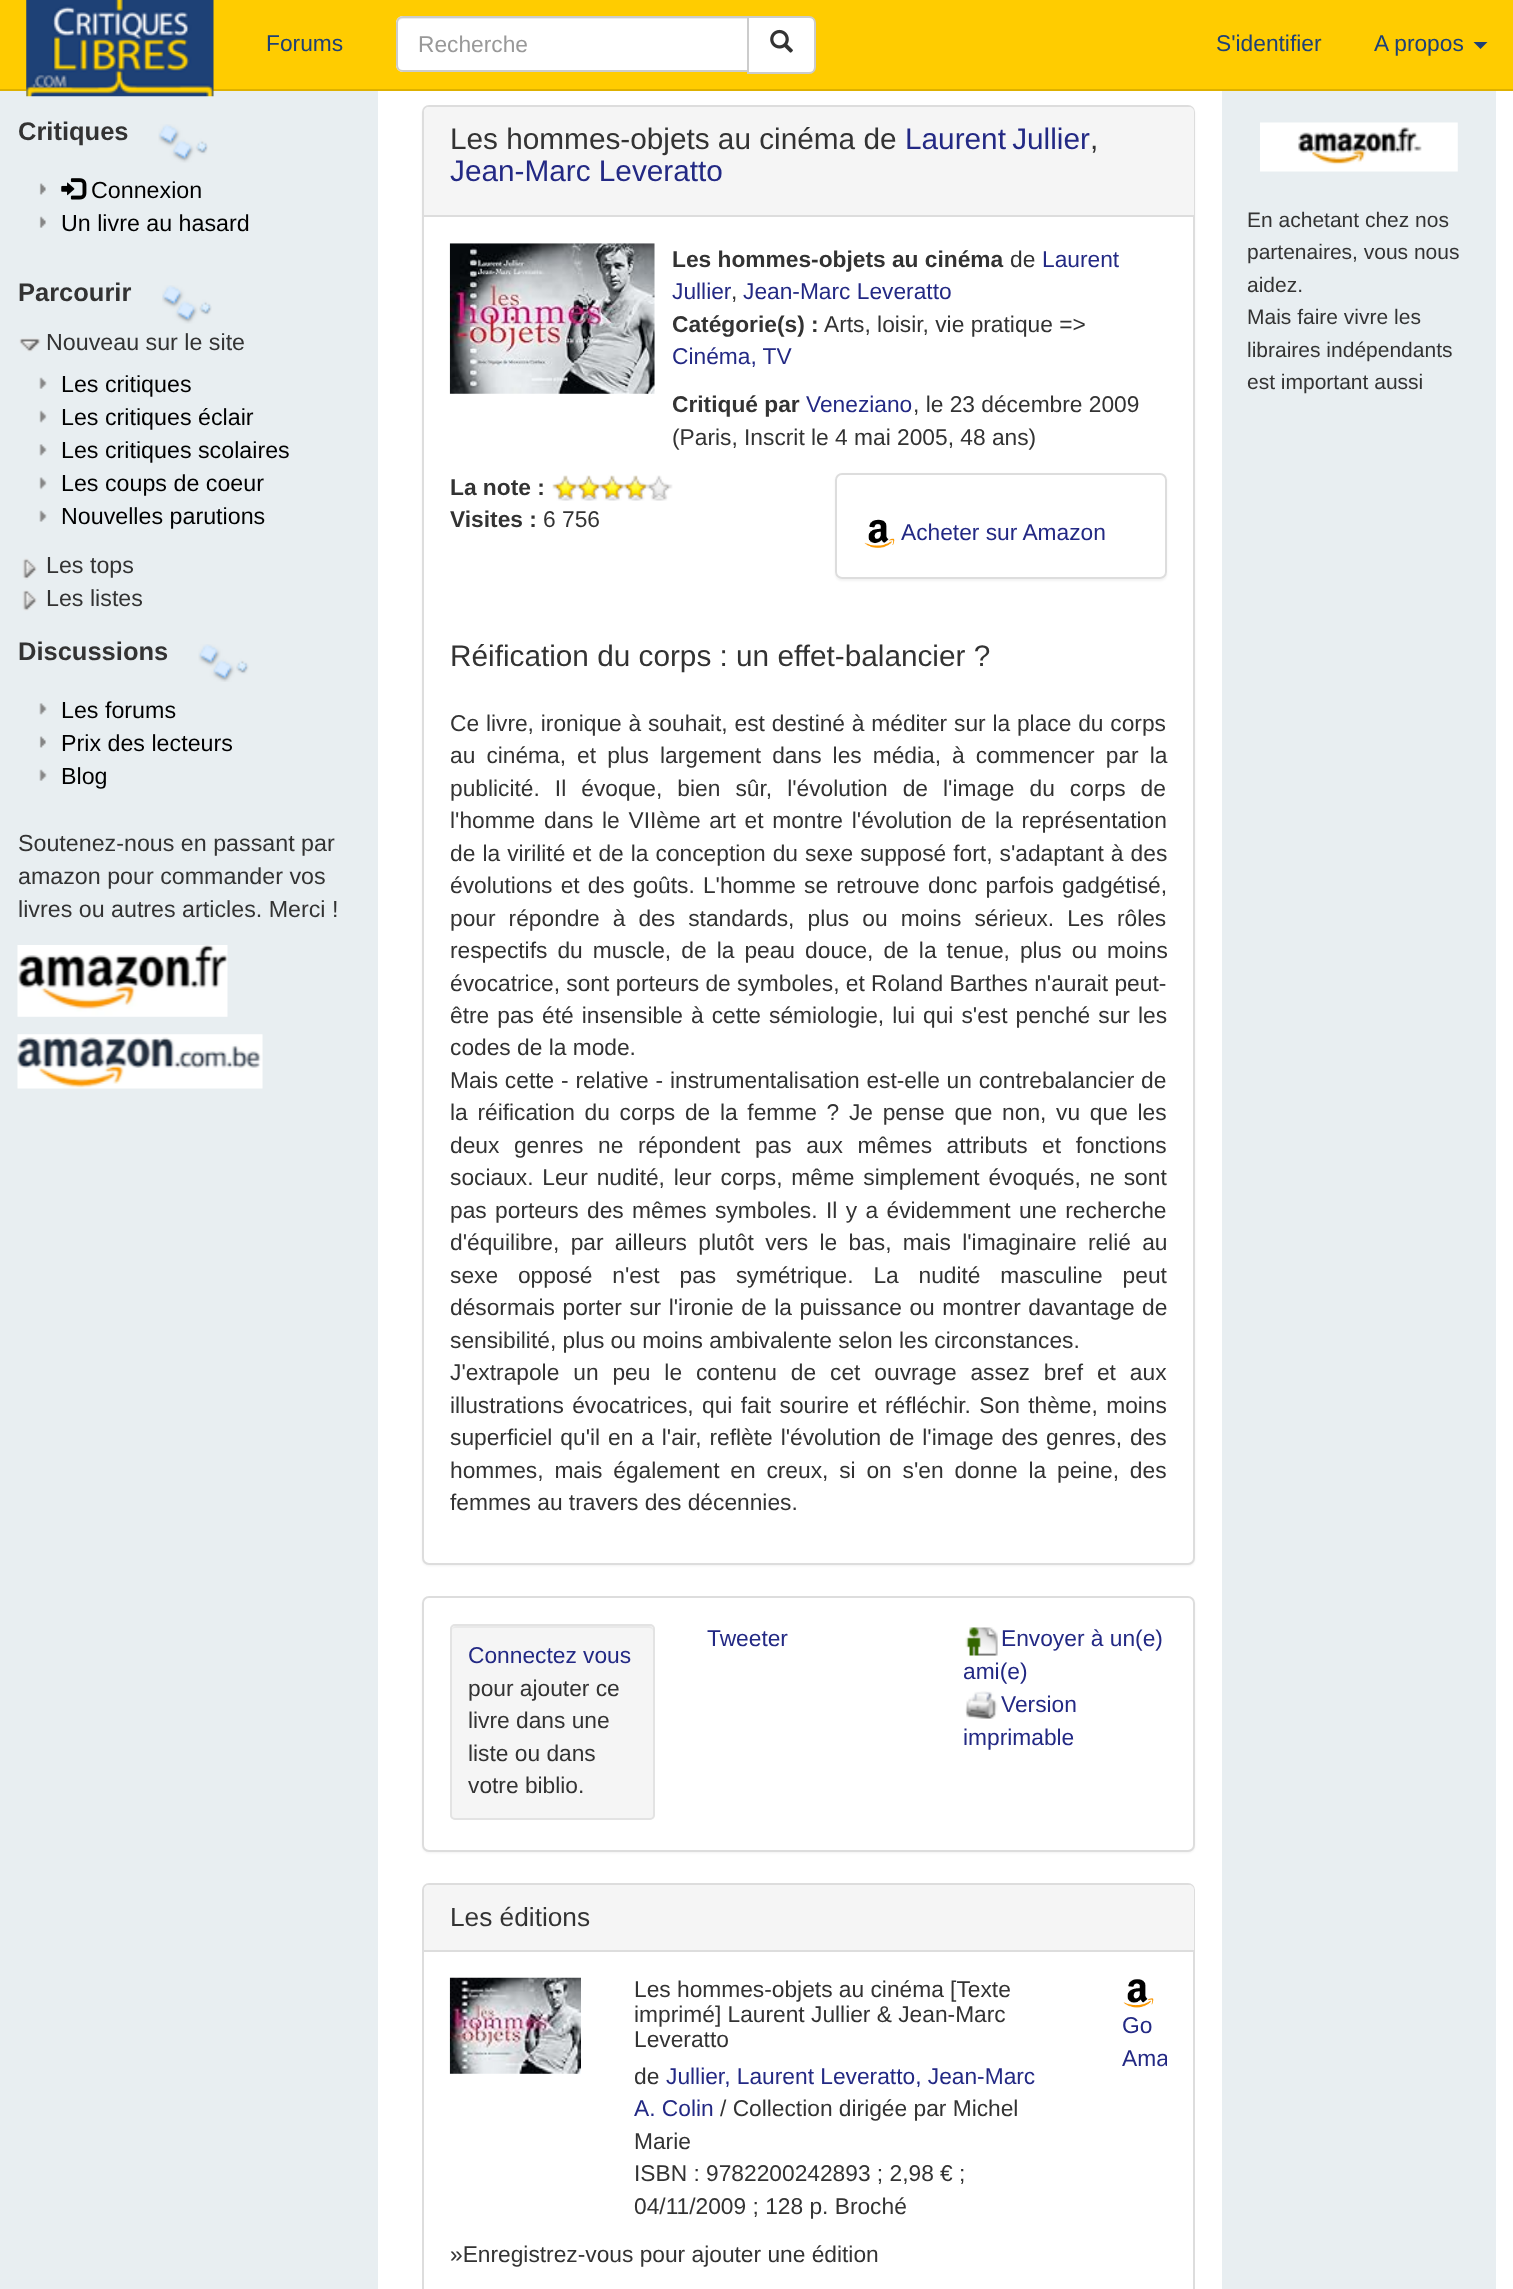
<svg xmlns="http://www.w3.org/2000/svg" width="1513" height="2289">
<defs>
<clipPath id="clip1"><path d="M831 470h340v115h-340zm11 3h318c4 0 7 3 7 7v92c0 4-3 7-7 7h-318c-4 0-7-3-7-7v-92c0-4 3-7 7-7z" clip-rule="evenodd"/></clipPath>
<clipPath id="clip2"><rect x="599" y="1978" width="568" height="246"/></clipPath>
</defs>
<rect width="100%" height="100%" fill="#fff"/>
<rect width="1513" height="89" fill="#fc0"/>
<rect y="89" width="1513" height="2" fill="#deb100"/>
<rect y="91" width="378" height="2198" fill="#e8eef1"/>
<image x="26" y="0" width="188" height="97" href="media/1.png"/>
<text x="266" y="51" style="font-family:Liberation Sans;font-size:22.75px;fill:#1e4176">Forums</text>
<path d="M403 16h346v56h-346c-4 0-7-3-7-7v-42c0-4 3-7 7-7z" fill="#fff"/>
<path d="M402 19h345v-1h-345c-3 0-5 2-5 5v1c0-2 3-5 5-5z" fill="#ececec"/>
<path d="M403 17h345v54h-345c-3.5 0-6-2.5-6-6v-42c0-3.5 2.5-6 6-6z" fill="none" stroke="#ccc" stroke-width="2"/>
<text x="418" y="52" style="font-family:Liberation Sans;font-size:22.75px;fill:#999">Recherche</text>
<path d="M748 17h61c3.5 0 6 2.5 6 6v44c0 3.5-2.5 6-6 6h-61z" fill="#fff" stroke="#ccc" stroke-width="2"/>
<image x="770" y="29" width="23" height="24" href="media/2.png"/>
<text x="1216" y="51" style="font-family:Liberation Sans;font-size:22.75px;fill:#1e4176">S'identifier</text>
<text x="1374" y="51" style="font-family:Liberation Sans;font-size:22.75px;fill:#1e4176">A propos</text>
<path d="M1473.5 42h14l-7 7z" fill="#1e4176"/>
<text x="18" y="140" style="font-family:Liberation Sans;font-size:25.5px;font-weight:bold;fill:#333">Critiques</text>
<image x="158" y="124" width="50" height="39" href="media/3.png"/>
<image x="39" y="183" width="7" height="12" href="media/4.png"/>
<image x="61" y="178" width="26" height="22" href="media/5.png"/>
<text x="91" y="198" style="font-family:Liberation Sans;font-size:23.25px;fill:#000">Connexion</text>
<image x="39" y="216" width="7" height="12" href="media/6.png"/>
<text x="61" y="231" style="font-family:Liberation Sans;font-size:23.25px;fill:#000">Un livre au hasard</text>
<text x="18" y="301" style="font-family:Liberation Sans;font-size:25.5px;font-weight:bold;fill:#333">Parcourir</text>
<image x="162" y="285" width="50" height="39" href="media/7.png"/>
<image x="19" y="338" width="22" height="14" href="media/8.png"/>
<text x="46" y="350" style="font-family:Liberation Sans;font-size:23.25px;fill:#333">Nouveau sur le site</text>
<image x="39" y="377" width="8" height="12" href="media/9.png"/>
<text x="61" y="392" style="font-family:Liberation Sans;font-size:23.25px;fill:#000">Les critiques</text>
<image x="39" y="410" width="8" height="13" href="media/10.png"/>
<text x="61" y="425" style="font-family:Liberation Sans;font-size:23.25px;fill:#000">Les critiques éclair</text>
<image x="39" y="444" width="8" height="12" href="media/11.png"/>
<text x="61" y="458" style="font-family:Liberation Sans;font-size:23.25px;fill:#000">Les critiques scolaires</text>
<image x="39" y="477" width="8" height="13" href="media/12.png"/>
<text x="61" y="491" style="font-family:Liberation Sans;font-size:23.25px;fill:#000">Les coups de coeur</text>
<image x="39" y="510" width="8" height="12" href="media/13.png"/>
<text x="61" y="524" style="font-family:Liberation Sans;font-size:23.25px;fill:#000">Nouvelles parutions</text>
<image x="22" y="558" width="15" height="22" href="media/14.png"/>
<text x="46" y="573" style="font-family:Liberation Sans;font-size:23.25px;fill:#333">Les tops</text>
<image x="22" y="590" width="15" height="21" href="media/15.png"/>
<text x="46" y="606" style="font-family:Liberation Sans;font-size:23.25px;fill:#333">Les listes</text>
<text x="18" y="660" style="font-family:Liberation Sans;font-size:25.5px;font-weight:bold;fill:#333">Discussions</text>
<image x="198" y="644" width="51" height="38" href="media/16.png"/>
<image x="39" y="703" width="8" height="12" href="media/11.png"/>
<text x="61" y="718" style="font-family:Liberation Sans;font-size:23.25px;fill:#000">Les forums</text>
<image x="39" y="736" width="7" height="12" href="media/4.png"/>
<text x="61" y="751" style="font-family:Liberation Sans;font-size:23.25px;fill:#000">Prix des lecteurs</text>
<image x="39" y="769" width="8" height="12" href="media/9.png"/>
<text x="61" y="784" style="font-family:Liberation Sans;font-size:23.25px;fill:#000">Blog</text>
<text x="18" y="851" style="font-family:Liberation Sans;font-size:23.25px;fill:#333">Soutenez-nous en passant par</text>
<text x="18" y="884" style="font-family:Liberation Sans;font-size:23.25px;fill:#333">amazon pour commander vos</text>
<text x="18" y="917" style="font-family:Liberation Sans;font-size:23.25px;fill:#333">livres ou autres articles. Merci !</text>
<image x="17" y="945" width="211" height="72" href="media/17.png"/>
<image x="17" y="1034" width="246" height="55" href="media/18.png"/>
<rect x="422" y="107" width="773" height="1459" rx="7" fill="#0000000d" filter="blur(1px)"/>
<rect x="423" y="106" width="771" height="1458" rx="6" fill="#fff" stroke="#ddd" stroke-width="2"/>
<path d="M429 107h760c3 0 5 2 5 5v105h-770v-105c0-3 2-5 5-5z" fill="#f5f5f5"/>
<rect x="424" y="215" width="770" height="2" fill="#ddd"/>
<text x="450" y="149" style="font-family:Liberation Sans;font-size:29.75px;fill:#333">Les hommes-objets au cinéma de</text>
<text x="905" y="149" word-spacing="-2" style="font-family:Liberation Sans;font-size:29.75px;fill:#232984">Laurent Jullier</text>
<text x="1090" y="149" style="font-family:Liberation Sans;font-size:29.75px;fill:#333">,</text>
<text x="450" y="181" style="font-family:Liberation Sans;font-size:29.75px;fill:#232984">Jean-Marc Leveratto</text>
<image x="449" y="243" width="206" height="151" href="media/19.png"/>
<text x="672" y="267" style="font-family:Liberation Sans;font-size:22.75px;font-weight:bold;fill:#333">Les hommes-objets au cinéma</text>
<text x="1010" y="267" style="font-family:Liberation Sans;font-size:22.75px;fill:#333">de</text>
<text x="1042" y="267" style="font-family:Liberation Sans;font-size:22.75px;fill:#232984">Laurent</text>
<text x="672" y="299" style="font-family:Liberation Sans;font-size:22.75px;fill:#232984">Jullier</text>
<text x="731" y="299" style="font-family:Liberation Sans;font-size:22.75px;fill:#333">,</text>
<text x="743" y="299" style="font-family:Liberation Sans;font-size:22.75px;fill:#232984">Jean-Marc Leveratto</text>
<text x="672" y="332" style="font-family:Liberation Sans;font-size:22.75px;font-weight:bold;fill:#333">Catégorie(s) :</text>
<text x="824" y="332" style="font-family:Liberation Sans;font-size:22.75px;fill:#333">Arts, loisir, vie pratique =&gt;</text>
<text x="672" y="364" style="font-family:Liberation Sans;font-size:22.75px;fill:#232984">Cinéma, TV</text>
<text x="672" y="412" style="font-family:Liberation Sans;font-size:22.75px;font-weight:bold;fill:#333">Critiqué par</text>
<text x="806" y="412" style="font-family:Liberation Sans;font-size:22.75px;fill:#232984">Veneziano</text>
<text x="913" y="412" style="font-family:Liberation Sans;font-size:22.75px;fill:#333">, le 23 décembre 2009</text>
<text x="672" y="445" style="font-family:Liberation Sans;font-size:22.75px;fill:#333">(Paris, Inscrit le 4 mai 2005, 48 ans)</text>
<text x="450" y="495" style="font-family:Liberation Sans;font-size:22.75px;font-weight:bold;fill:#333">La note :</text>
<image x="552" y="475" width="121" height="26" href="media/20.png"/>
<text x="450" y="527" style="font-family:Liberation Sans;font-size:22.75px;font-weight:bold;fill:#333">Visites :</text>
<text x="543" y="527" style="font-family:Liberation Sans;font-size:22.75px;fill:#333">6 756</text>
<g clip-path="url(#clip1)">
<rect x="835" y="474" width="332" height="107" rx="7" fill="#0000000d" filter="blur(1px)"/>
</g>
<rect x="836" y="474" width="330" height="104" rx="6" fill="none" stroke="#ddd" stroke-width="2"/>
<image x="864" y="519" width="31" height="29" href="media/21.png"/>
<text x="901" y="540" style="font-family:Liberation Sans;font-size:22.75px;fill:#232984">Acheter sur Amazon</text>
<text x="450" y="666" style="font-family:Liberation Sans;font-size:29.75px;fill:#333">Réification du corps : un effet-balancier ?</text>
<text x="450" y="731" word-spacing="0.5" style="font-family:Liberation Sans;font-size:22.75px;fill:#333">Ce livre, ironique à souhait, est destiné à méditer sur la place du corps</text>
<text x="450" y="763" word-spacing="4.75" style="font-family:Liberation Sans;font-size:22.75px;fill:#333">au cinéma, et plus largement dans les média, à commencer par la</text>
<text x="450" y="796" word-spacing="8.75" style="font-family:Liberation Sans;font-size:22.75px;fill:#333">publicité. Il évoque, bien sûr, l'évolution de l'image du corps de</text>
<text x="450" y="828" word-spacing="2.4" style="font-family:Liberation Sans;font-size:22.75px;fill:#333">l'homme dans le VIIème art et montre l'évolution de la représentation</text>
<text x="450" y="861" word-spacing="0.75" style="font-family:Liberation Sans;font-size:22.75px;fill:#333">de la virilité et de la conception du sexe supposé fort, s'adaptant à des</text>
<text x="450" y="893" word-spacing="1.9" style="font-family:Liberation Sans;font-size:22.75px;fill:#333">évolutions et des goûts. L'homme se retrouve donc parfois gadgétisé,</text>
<text x="450" y="926" word-spacing="6.75" style="font-family:Liberation Sans;font-size:22.75px;fill:#333">pour répondre à des standards, plus ou moins sérieux. Les rôles</text>
<text x="450" y="958" word-spacing="3.75" style="font-family:Liberation Sans;font-size:22.75px;fill:#333">respectifs du muscle, de la peau douce, de la tenue, plus ou moins</text>
<text x="450" y="991" style="font-family:Liberation Sans;font-size:22.75px;fill:#333">évocatrice, sont porteurs de symboles, et Roland Barthes n'aurait peut-</text>
<text x="450" y="1023" word-spacing="1.75" style="font-family:Liberation Sans;font-size:22.75px;fill:#333">être pas été insensible à cette sémiologie, lui qui s'est penché sur les</text>
<text x="450" y="1055" style="font-family:Liberation Sans;font-size:22.75px;fill:#333">codes de la mode.</text>
<text x="450" y="1088" word-spacing="0.5" style="font-family:Liberation Sans;font-size:22.75px;fill:#333">Mais cette - relative - instrumentalisation est-elle un contrebalancier de</text>
<text x="450" y="1120" word-spacing="3.4" style="font-family:Liberation Sans;font-size:22.75px;fill:#333">la réification du corps de la femme ? Je pense que non, vu que les</text>
<text x="450" y="1153" word-spacing="8.25" style="font-family:Liberation Sans;font-size:22.75px;fill:#333">deux genres ne répondent pas aux mêmes attributs et fonctions</text>
<text x="450" y="1185" word-spacing="2.5" style="font-family:Liberation Sans;font-size:22.75px;fill:#333">sociaux. Leur nudité, leur corps, même simplement évoqués, ne sont</text>
<text x="450" y="1218" word-spacing="2.1" style="font-family:Liberation Sans;font-size:22.75px;fill:#333">pas porteurs des mêmes symboles. Il y a évidemment une recherche</text>
<text x="450" y="1250" word-spacing="5" style="font-family:Liberation Sans;font-size:22.75px;fill:#333">d'équilibre, par ailleurs plutôt vers le bas, mais l'imaginaire relié au</text>
<text x="450" y="1283" word-spacing="13.5" style="font-family:Liberation Sans;font-size:22.75px;fill:#333">sexe opposé n'est pas symétrique. La nudité masculine peut</text>
<text x="450" y="1315" word-spacing="1.25" style="font-family:Liberation Sans;font-size:22.75px;fill:#333">désormais porter sur l'ironie de la puissance ou montrer davantage de</text>
<text x="450" y="1348" style="font-family:Liberation Sans;font-size:22.75px;fill:#333">sensibilité, plus ou moins ambivalente selon les circonstances.</text>
<text x="450" y="1380" word-spacing="7.6" style="font-family:Liberation Sans;font-size:22.75px;fill:#333">J'extrapole un peu le contenu de cet ouvrage assez bref et aux</text>
<text x="450" y="1413" word-spacing="2.1" style="font-family:Liberation Sans;font-size:22.75px;fill:#333">illustrations évocatrices, qui fait sourire et réfléchir. Son thème, moins</text>
<text x="450" y="1445" word-spacing="1.6" style="font-family:Liberation Sans;font-size:22.75px;fill:#333">superficiel qu'il en a l'air, reflète l'évolution de l'image des genres, des</text>
<text x="450" y="1478" word-spacing="4.5" style="font-family:Liberation Sans;font-size:22.75px;fill:#333">hommes, mais également en creux, si on s'en donne la peine, des</text>
<text x="450" y="1510" style="font-family:Liberation Sans;font-size:22.75px;fill:#333">femmes au travers des décennies.</text>
<rect x="422" y="1598" width="773" height="255" rx="7" fill="#0000000d" filter="blur(1px)"/>
<rect x="423" y="1597" width="771" height="254" rx="6" fill="#fff" stroke="#ddd" stroke-width="2"/>
<text x="707" y="1646" style="font-family:Liberation Sans;font-size:22.75px;fill:#232984">Tweeter</text>
<image x="965" y="1627" width="33" height="29" href="media/22.png"/>
<text x="1001" y="1646" style="font-family:Liberation Sans;font-size:22.75px;fill:#232984">Envoyer à un(e)</text>
<text x="963" y="1679" style="font-family:Liberation Sans;font-size:22.75px;fill:#232984">ami(e)</text>
<image x="965" y="1691" width="33" height="28" href="media/23.png"/>
<text x="1001" y="1712" style="font-family:Liberation Sans;font-size:22.75px;fill:#232984">Version</text>
<text x="963" y="1745" style="font-family:Liberation Sans;font-size:22.75px;fill:#232984">imprimable</text>
<rect x="450" y="1624" width="205" height="196" rx="5" fill="#f5f5f5"/>
<path d="M455 1628h194c2 0 4 1 4 3v-1c0-2-2-4-4-4h-193c-2 0-4 2-4 4v1c0-2 1-3 3-3z" fill="#e9e9e9"/>
<rect x="451" y="1625" width="203" height="194" rx="4" fill="none" stroke="#e3e3e3" stroke-width="2"/>
<text x="468" y="1663" style="font-family:Liberation Sans;font-size:22.75px;fill:#232984">Connectez vous</text>
<text x="468" y="1696" style="font-family:Liberation Sans;font-size:22.75px;fill:#333">pour ajouter ce</text>
<text x="468" y="1728" style="font-family:Liberation Sans;font-size:22.75px;fill:#333">livre dans une</text>
<text x="468" y="1761" style="font-family:Liberation Sans;font-size:22.75px;fill:#333">liste ou dans</text>
<text x="468" y="1793" style="font-family:Liberation Sans;font-size:22.75px;fill:#333">votre biblio.</text>
<rect x="423" y="1884" width="771" height="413" rx="6" fill="none" stroke="#ddd" stroke-width="2"/>
<path d="M429 1885h760c3 0 5 2 5 5v61h-770v-61c0-3 2-5 5-5z" fill="#f5f5f5"/>
<rect x="424" y="1950" width="770" height="2" fill="#ddd"/>
<text x="450" y="1926" style="font-family:Liberation Sans;font-size:26.25px;fill:#333">Les éditions</text>
<image x="449" y="1977" width="132" height="97" href="media/24.png"/>
<text x="634" y="1997" style="font-family:Liberation Sans;font-size:22.75px;fill:#333">Les hommes-objets au cinéma [Texte</text>
<text x="634" y="2022" style="font-family:Liberation Sans;font-size:22.75px;fill:#333">imprimé] Laurent Jullier &amp; Jean-Marc</text>
<text x="634" y="2047" style="font-family:Liberation Sans;font-size:22.75px;fill:#333">Leveratto</text>
<text x="634" y="2084" style="font-family:Liberation Sans;font-size:22.75px;fill:#333">de</text>
<text x="666" y="2084" style="font-family:Liberation Sans;font-size:22.75px;fill:#232984">Jullier, Laurent Leveratto, Jean-Marc</text>
<text x="634" y="2116" style="font-family:Liberation Sans;font-size:22.75px;fill:#232984">A. Colin</text>
<text x="720" y="2116" style="font-family:Liberation Sans;font-size:22.75px;fill:#333">/ Collection dirigée par Michel</text>
<text x="634" y="2149" style="font-family:Liberation Sans;font-size:22.75px;fill:#333">Marie</text>
<text x="634" y="2181" style="font-family:Liberation Sans;font-size:22.75px;fill:#333">ISBN : 9782200242893 ; 2,98 € ;</text>
<text x="634" y="2214" style="font-family:Liberation Sans;font-size:22.75px;fill:#333">04/11/2009 ; 128 p. Broché</text>
<image x="1123" y="1979" width="31" height="29" href="media/25.png"/>
<text x="1122" y="2033" style="font-family:Liberation Sans;font-size:22.75px;fill:#232984">Go</text>
<g clip-path="url(#clip2)">
<text x="1122" y="2066" style="font-family:Liberation Sans;font-size:22.75px;fill:#232984">Ama</text>
</g>
<text x="450" y="2262" style="font-family:Liberation Sans;font-size:22.75px;fill:#333">»Enregistrez-vous pour ajouter une édition</text>
<rect x="1222" y="91" width="274" height="2198" fill="#e8eef1"/>
<image x="1260" y="122" width="198" height="50" href="media/26.png"/>
<text x="1247" y="227" style="font-family:Liberation Sans;font-size:21px;fill:#333">En achetant chez nos</text>
<text x="1247" y="259" style="font-family:Liberation Sans;font-size:21px;fill:#333">partenaires, vous nous</text>
<text x="1247" y="292" style="font-family:Liberation Sans;font-size:21px;fill:#333">aidez.</text>
<text x="1247" y="324" style="font-family:Liberation Sans;font-size:21px;fill:#333">Mais faire vivre les</text>
<text x="1247" y="357" style="font-family:Liberation Sans;font-size:21px;fill:#333">libraires indépendants</text>
<text x="1247" y="389" style="font-family:Liberation Sans;font-size:21px;fill:#333">est important aussi</text>
</svg>
